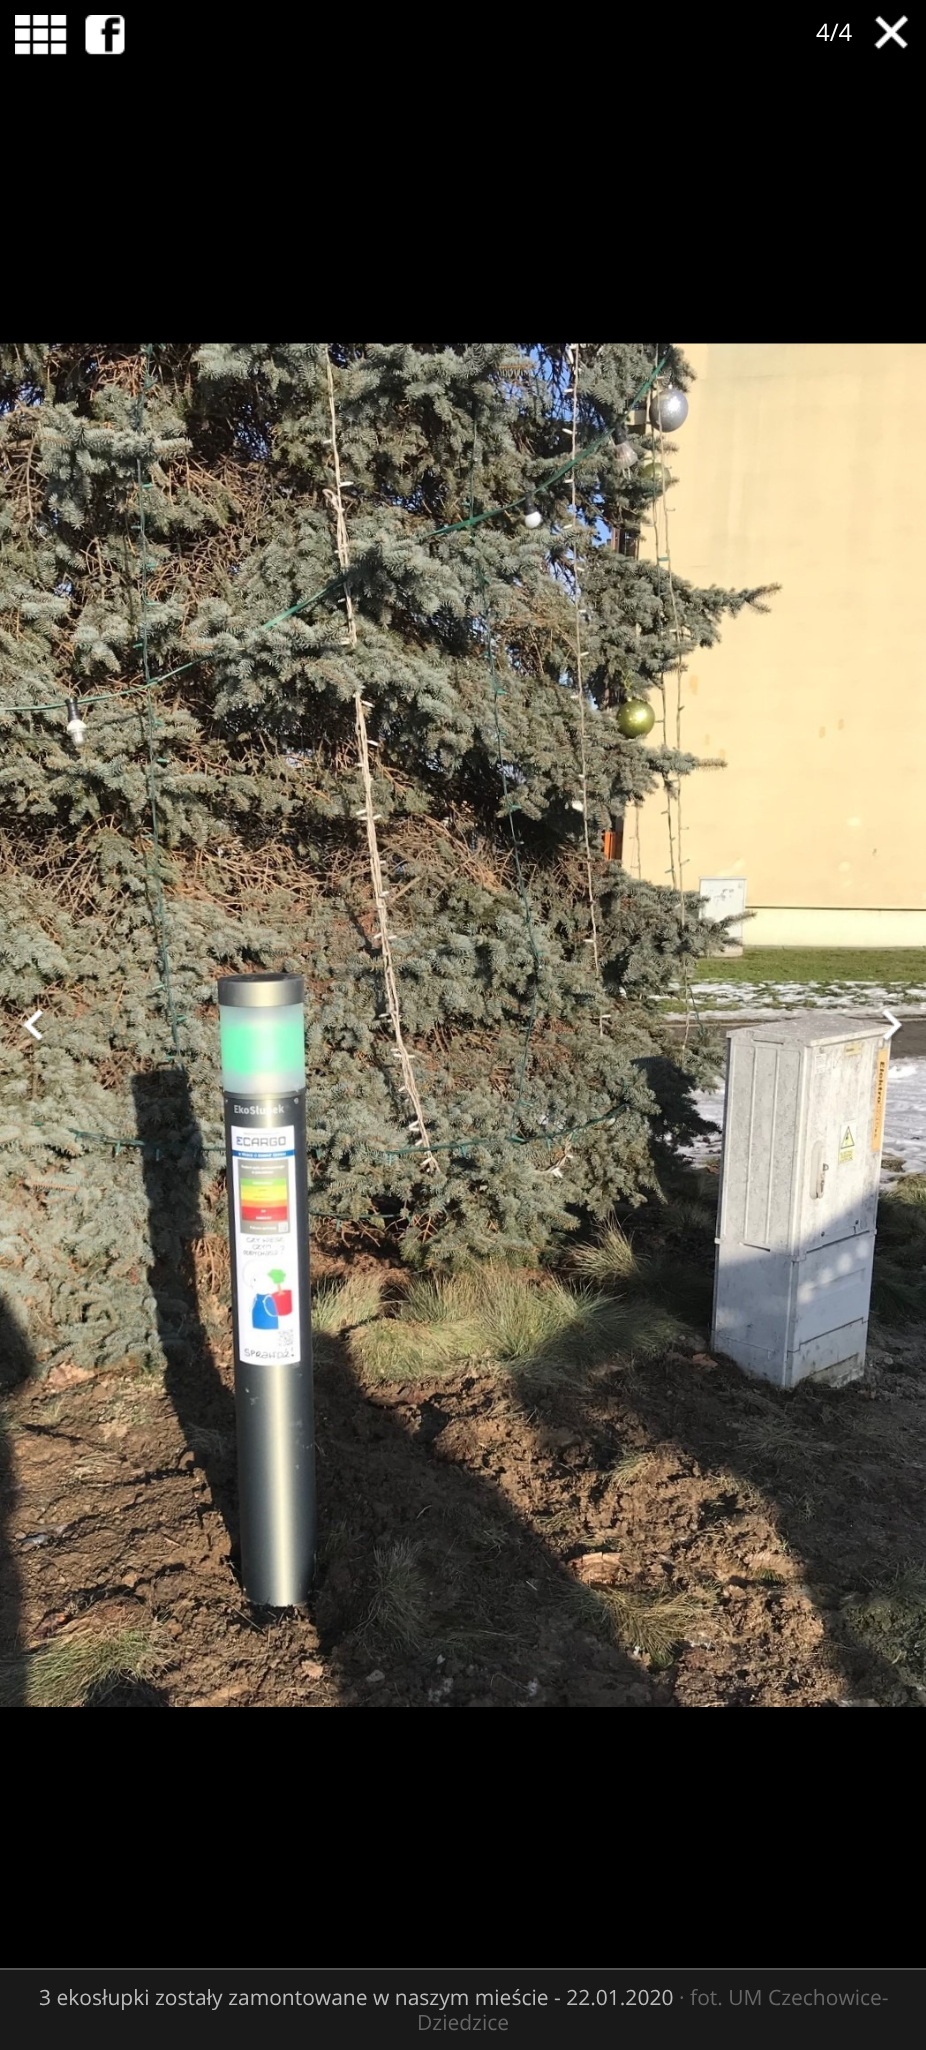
<svg xmlns="http://www.w3.org/2000/svg" width="926" height="2050">
<rect width="100%" height="100%" fill="#000"/>
<image x="15" y="15" width="53" height="40" href="media/1.png"/>
<image x="85" y="15" width="40" height="40" href="media/2.png"/>
<text x="816" y="41" style="font-family:Open Sans;font-size:24px;fill:#fff">4/4</text>
<image x="874" y="15" width="35" height="35" href="media/3.png"/>
<image x="0" y="343" width="926" height="1364" href="media/4.png"/>
<image x="22" y="1008" width="23" height="36" href="media/5.png"/>
<image x="882" y="1008" width="22" height="36" href="media/6.png"/>
<rect y="1970" width="926" height="80" fill="#191919"/>
<rect y="1968" width="926" height="2" fill="#555"/>
<text x="39" y="2005" style="font-family:Open Sans;font-size:21px;fill:#bcbcbc">3 ekosłupki zostały zamontowane w naszym mieście - 22.01.2020</text>
<text x="679" y="2005" style="font-family:Open Sans;font-size:21px;fill:#666">· fot. UM Czechowice-</text>
<text x="417" y="2030" style="font-family:Open Sans;font-size:21px;fill:#666">Dziedzice</text>
</svg>
